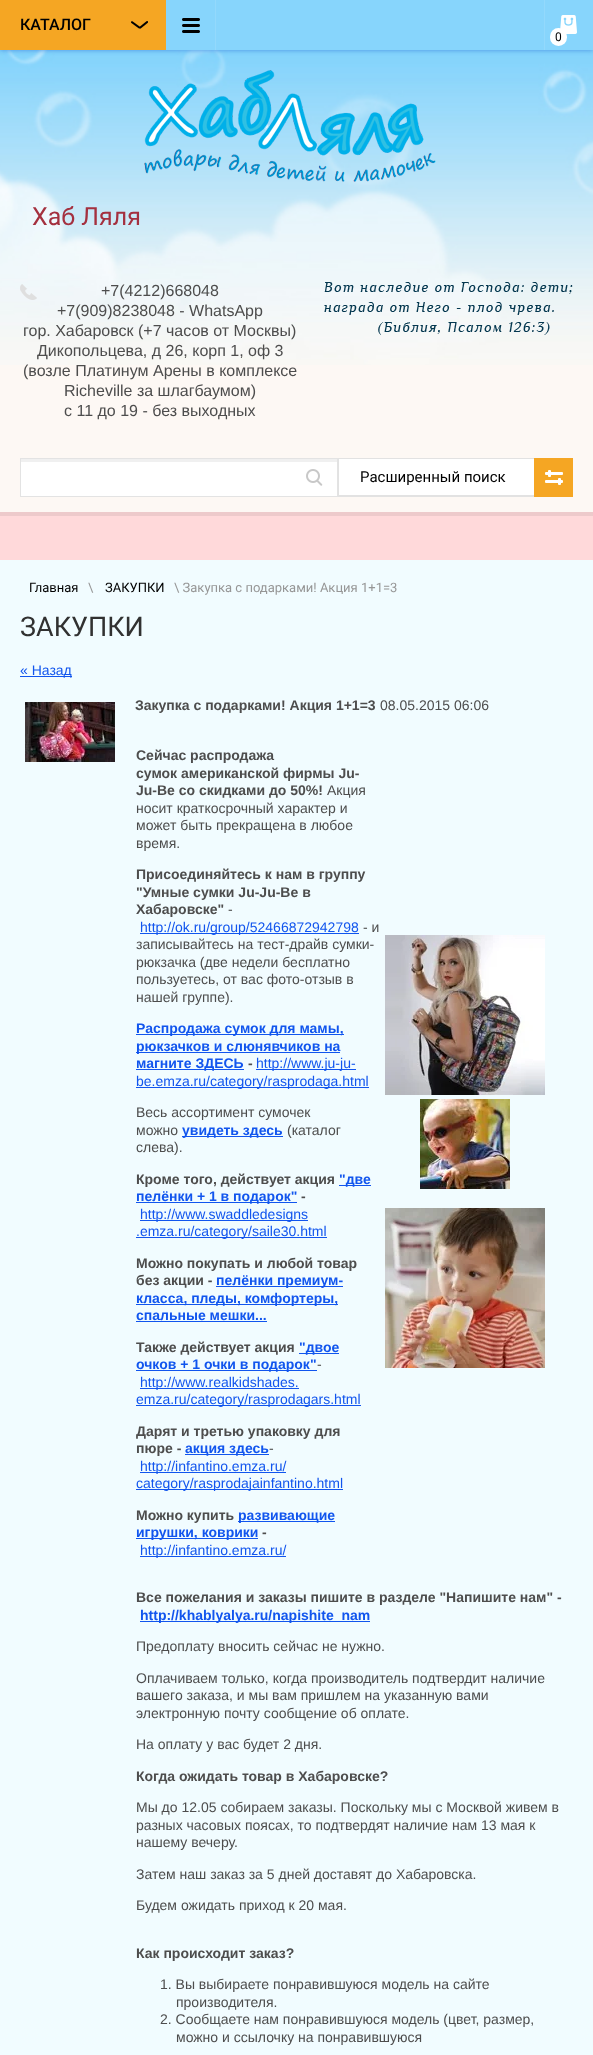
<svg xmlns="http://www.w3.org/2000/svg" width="593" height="2055">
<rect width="100%" height="100%" fill="#fdf8f4"/>
<image x="0" y="50" width="593" height="315" href="media/1.png"/>
<rect width="593" height="50" fill="#4a90e2" filter="blur(2.5px)"/>
<rect x="166" width="427" height="50" fill="#87d5fc"/>
<rect width="166" height="50" fill="#f5a623"/>
<text x="20" y="30" style="font-family:Roboto;font-size:16px;font-weight:500;fill:#000">КАТАЛОГ</text>
<image x="131" y="21" width="17" height="8" href="media/2.png"/>
<image x="182" y="18" width="18" height="15" href="media/3.png"/>
<rect x="215" width="1" height="50" fill="#93d9fc"/>
<rect x="544" width="1" height="50" fill="#93d9fc"/>
<image x="560" y="15" width="17" height="19" href="media/4.png"/>
<rect x="550" y="28" width="17" height="18" rx="8.5" fill="#fff"/>
<text x="555" y="41" style="font-family:Roboto;font-size:12px;fill:#000">0</text>
<image x="144" y="70" width="292" height="112" href="media/5.png"/>
<text x="32" y="225" style="font-family:Roboto;font-size:25px;fill:#a4303f">Хаб Ляля</text>
<image x="20" y="284" width="17" height="16" href="media/6.png"/>
<text x="101" y="296" style="font-family:Liberation Sans;font-size:16px;fill:#4d4d4d">+7(4212)668048</text>
<text x="57" y="316" style="font-family:Liberation Sans;font-size:16px;fill:#4d4d4d">+7(909)8238048 - WhatsApp</text>
<text x="23" y="336" style="font-family:Liberation Sans;font-size:16px;fill:#4d4d4d">гор. Хабаровск (+7 часов от Москвы)</text>
<text x="37" y="356" style="font-family:Liberation Sans;font-size:16px;fill:#4d4d4d">Дикопольцева, д 26, корп 1, оф 3</text>
<text x="23" y="376" style="font-family:Liberation Sans;font-size:16px;fill:#4d4d4d">(возле Платинум Арены в комплексе</text>
<text x="64" y="396" style="font-family:Liberation Sans;font-size:16px;fill:#4d4d4d">Richeville за шлагбаумом)</text>
<text x="64" y="416" style="font-family:Liberation Sans;font-size:16px;fill:#4d4d4d">с 11 до 19 - без выходных</text>
<image x="324" y="282" width="249" height="53" href="media/7.png"/>
<rect x="21" y="462" width="316" height="34" fill="#fff"/>
<rect x="21" y="459" width="316" height="3" fill="#f0f0f0"/>
<rect x="20.5" y="458.5" width="317" height="38" fill="none" stroke="#e3e3e3"/>
<image x="306" y="469" width="17" height="17" href="media/8.png"/>
<rect x="339" y="459" width="195" height="36" fill="#fff"/>
<rect x="338" y="458" width="196" height="1" fill="#e2e2e2"/>
<rect x="338" y="495" width="196" height="2" fill="#e2e2e2"/>
<rect x="338" y="458" width="1" height="39" fill="#e2e2e2"/>
<text x="360" y="482" style="font-family:Roboto;font-size:15px;fill:#000">Расширенный поиск</text>
<rect x="534" y="458" width="39" height="39" fill="#f5a623"/>
<rect x="545" y="472" width="18" height="3" rx="1" fill="#fff"/>
<rect x="548" y="470" width="3" height="7" rx="1" fill="#fff"/>
<rect x="545" y="480" width="18" height="3" rx="1" fill="#fff"/>
<rect x="558" y="478" width="3" height="7" rx="1" fill="#fff"/>
<rect y="516" width="593" height="44" fill="#ffd9da"/>
<rect y="512" width="593" height="4" fill="#edcacb"/>
<rect y="560" width="593" height="1495" fill="#f1fcff"/>
<text x="29" y="592" style="font-family:Roboto;font-size:13px;fill:#000">Главная</text>
<text x="88" y="592" style="font-family:Roboto;font-size:13px;fill:#969696">\</text>
<text x="105" y="592" style="font-family:Roboto;font-size:13px;fill:#000">ЗАКУПКИ</text>
<text x="174" y="592" style="font-family:Roboto;font-size:13px;fill:#969696">\ Закупка с подарками! Акция 1+1=3</text>
<text x="20" y="636" style="font-family:Roboto;font-size:27px;fill:#313131">ЗАКУПКИ</text>
<rect x="20" y="676" width="52" height="1" fill="#15e"/>
<text x="20" y="675" style="font-family:Liberation Sans;font-size:14px;fill:#15e">« Назад</text>
<image x="25" y="702" width="90" height="60" href="media/9.png"/>
<text x="135" y="710" style="font-family:Liberation Sans;font-size:14px;font-weight:bold;fill:#4d4d4d">Закупка с подарками! Акция 1+1=3</text>
<text x="380" y="710" style="font-family:Liberation Sans;font-size:14px;fill:#4d4d4d">08.05.2015 06:06</text>
<text x="136" y="760" style="font-family:Liberation Sans;font-size:14px;font-weight:bold;fill:#4d4d4d">Сейчас распродажа</text>
<text x="136" y="778" style="font-family:Liberation Sans;font-size:14px;font-weight:bold;fill:#4d4d4d">сумок американской фирмы Ju-</text>
<text x="136" y="795" style="font-family:Liberation Sans;font-size:14px;font-weight:bold;fill:#4d4d4d">Ju-Be со скидками до 50%!</text>
<text x="327" y="795" style="font-family:Liberation Sans;font-size:14px;fill:#4d4d4d">Акция</text>
<text x="136" y="813" style="font-family:Liberation Sans;font-size:14px;fill:#4d4d4d">носит краткосрочный характер и</text>
<text x="136" y="830" style="font-family:Liberation Sans;font-size:14px;fill:#4d4d4d">может быть прекращена в любое</text>
<text x="136" y="848" style="font-family:Liberation Sans;font-size:14px;fill:#4d4d4d">время.</text>
<text x="136" y="879" style="font-family:Liberation Sans;font-size:14px;font-weight:bold;fill:#4d4d4d">Присоединяйтесь к нам в группу</text>
<text x="136" y="897" style="font-family:Liberation Sans;font-size:14px;font-weight:bold;fill:#4d4d4d">"Умные сумки Ju-Ju-Be в</text>
<text x="136" y="914" style="font-family:Liberation Sans;font-size:14px;font-weight:bold;fill:#4d4d4d">Хабаровске"</text>
<text x="228" y="914" style="font-family:Liberation Sans;font-size:14px;fill:#4d4d4d">-</text>
<rect x="140" y="933" width="219" height="1" fill="#15e"/>
<text x="140" y="932" style="font-family:Liberation Sans;font-size:14px;fill:#15e">http://ok.ru/group/52466872942798</text>
<text x="363" y="932" style="font-family:Liberation Sans;font-size:14px;fill:#4d4d4d">- и</text>
<text x="136" y="949" style="font-family:Liberation Sans;font-size:14px;fill:#4d4d4d">записывайтесь на тест-драйв сумки-</text>
<text x="136" y="967" style="font-family:Liberation Sans;font-size:14px;fill:#4d4d4d">рюкзачка (две недели бесплатно</text>
<text x="136" y="984" style="font-family:Liberation Sans;font-size:14px;fill:#4d4d4d">пользуетесь, от вас фото-отзыв в</text>
<text x="136" y="1002" style="font-family:Liberation Sans;font-size:14px;fill:#4d4d4d">нашей группе).</text>
<rect x="136" y="1034" width="208" height="1" fill="#15e"/>
<text x="136" y="1033" style="font-family:Liberation Sans;font-size:14px;font-weight:bold;fill:#15e">Распродажа сумок для мамы,</text>
<rect x="136" y="1052" width="204" height="1" fill="#15e"/>
<text x="136" y="1051" style="font-family:Liberation Sans;font-size:14px;font-weight:bold;fill:#15e">рюкзачков и слюнявчиков на</text>
<rect x="136" y="1069" width="108" height="1" fill="#15e"/>
<text x="136" y="1068" style="font-family:Liberation Sans;font-size:14px;font-weight:bold;fill:#15e">магните ЗДЕСЬ</text>
<text x="248" y="1068" style="font-family:Liberation Sans;font-size:14px;font-weight:bold;fill:#4d4d4d">-</text>
<rect x="256" y="1069" width="100" height="1" fill="#15e"/>
<text x="256" y="1068" style="font-family:Liberation Sans;font-size:14px;fill:#15e">http://www.ju-ju-</text>
<rect x="136" y="1087" width="233" height="1" fill="#15e"/>
<text x="136" y="1086" style="font-family:Liberation Sans;font-size:14px;fill:#15e">be.emza.ru/category/rasprodaga.html</text>
<text x="136" y="1117" style="font-family:Liberation Sans;font-size:14px;fill:#4d4d4d">Весь ассортимент сумочек</text>
<text x="136" y="1135" style="font-family:Liberation Sans;font-size:14px;fill:#4d4d4d">можно</text>
<rect x="182" y="1136" width="101" height="1" fill="#15e"/>
<text x="182" y="1135" style="font-family:Liberation Sans;font-size:14px;font-weight:bold;fill:#15e">увидеть здесь</text>
<text x="287" y="1135" style="font-family:Liberation Sans;font-size:14px;fill:#4d4d4d">(каталог</text>
<text x="136" y="1152" style="font-family:Liberation Sans;font-size:14px;fill:#4d4d4d">слева).</text>
<text x="136" y="1184" style="font-family:Liberation Sans;font-size:14px;font-weight:bold;fill:#4d4d4d">Кроме того, действует акция</text>
<rect x="339" y="1185" width="32" height="1" fill="#15e"/>
<text x="339" y="1184" style="font-family:Liberation Sans;font-size:14px;font-weight:bold;fill:#15e">"две</text>
<rect x="136" y="1202" width="161" height="1" fill="#15e"/>
<text x="136" y="1201" style="font-family:Liberation Sans;font-size:14px;font-weight:bold;fill:#15e">пелёнки + 1 в подарок"</text>
<text x="301" y="1201" style="font-family:Liberation Sans;font-size:14px;font-weight:bold;fill:#4d4d4d">-</text>
<rect x="140" y="1220" width="168" height="1" fill="#15e"/>
<text x="140" y="1219" style="font-family:Liberation Sans;font-size:14px;fill:#15e">http://www.swaddledesigns</text>
<rect x="136" y="1237" width="191" height="1" fill="#15e"/>
<text x="136" y="1236" style="font-family:Liberation Sans;font-size:14px;fill:#15e">.emza.ru/category/saile30.html</text>
<text x="136" y="1268" style="font-family:Liberation Sans;font-size:14px;font-weight:bold;fill:#4d4d4d">Можно покупать и любой товар</text>
<text x="136" y="1285" style="font-family:Liberation Sans;font-size:14px;font-weight:bold;fill:#4d4d4d">без акции -</text>
<rect x="216" y="1286" width="127" height="1" fill="#15e"/>
<text x="216" y="1285" style="font-family:Liberation Sans;font-size:14px;font-weight:bold;fill:#15e">пелёнки премиум-</text>
<rect x="136" y="1304" width="202" height="1" fill="#15e"/>
<text x="136" y="1303" style="font-family:Liberation Sans;font-size:14px;font-weight:bold;fill:#15e">класса, пледы, комфортеры,</text>
<text x="136" y="1320" style="font-family:Liberation Sans;font-size:14px;font-weight:bold;fill:#15e">спальные мешки...</text>
<rect x="136" y="1321" width="131" height="1" fill="#15e"/>
<text x="136" y="1352" style="font-family:Liberation Sans;font-size:14px;font-weight:bold;fill:#4d4d4d">Также действует акция</text>
<rect x="299" y="1353" width="40" height="1" fill="#15e"/>
<text x="299" y="1352" style="font-family:Liberation Sans;font-size:14px;font-weight:bold;fill:#15e">"двое</text>
<rect x="136" y="1370" width="181" height="1" fill="#15e"/>
<text x="136" y="1369" style="font-family:Liberation Sans;font-size:14px;font-weight:bold;fill:#15e">очков + 1 очки в подарок"</text>
<text x="317" y="1369" style="font-family:Liberation Sans;font-size:14px;fill:#4d4d4d">-</text>
<rect x="140" y="1388" width="159" height="1" fill="#15e"/>
<text x="140" y="1387" style="font-family:Liberation Sans;font-size:14px;fill:#15e">http://www.realkidshades.</text>
<rect x="136" y="1405" width="167" height="1" fill="#15e"/>
<text x="136" y="1404" style="font-family:Liberation Sans;font-size:14px;fill:#15e">emza.ru/category/rasproda</text>
<rect x="303" y="1405" width="58" height="1" fill="#15e"/>
<text x="303" y="1404" style="font-family:Liberation Sans;font-size:14px;fill:#15e">gars.html</text>
<text x="136" y="1436" style="font-family:Liberation Sans;font-size:14px;font-weight:bold;fill:#4d4d4d">Дарят и третью упаковку для</text>
<text x="136" y="1453" style="font-family:Liberation Sans;font-size:14px;font-weight:bold;fill:#4d4d4d">пюре -</text>
<rect x="185" y="1454" width="84" height="1" fill="#15e"/>
<text x="185" y="1453" style="font-family:Liberation Sans;font-size:14px;font-weight:bold;fill:#15e">акция здесь</text>
<text x="269" y="1453" style="font-family:Liberation Sans;font-size:14px;fill:#4d4d4d">-</text>
<rect x="140" y="1472" width="146" height="1" fill="#15e"/>
<text x="140" y="1471" style="font-family:Liberation Sans;font-size:14px;fill:#15e">http://infantino.emza.ru/</text>
<rect x="136" y="1489" width="207" height="1" fill="#15e"/>
<text x="136" y="1488" style="font-family:Liberation Sans;font-size:14px;fill:#15e">category/rasprodajainfantino.html</text>
<text x="136" y="1520" style="font-family:Liberation Sans;font-size:14px;font-weight:bold;fill:#4d4d4d">Можно купить</text>
<rect x="238" y="1521" width="97" height="1" fill="#15e"/>
<text x="238" y="1520" style="font-family:Liberation Sans;font-size:14px;font-weight:bold;fill:#15e">развивающие</text>
<rect x="136" y="1538" width="122" height="1" fill="#15e"/>
<text x="136" y="1537" style="font-family:Liberation Sans;font-size:14px;font-weight:bold;fill:#15e">игрушки, коврики</text>
<text x="262" y="1537" style="font-family:Liberation Sans;font-size:14px;font-weight:bold;fill:#4d4d4d">-</text>
<rect x="140" y="1556" width="146" height="1" fill="#15e"/>
<text x="140" y="1555" style="font-family:Liberation Sans;font-size:14px;fill:#15e">http://infantino.emza.ru/</text>
<image x="385" y="935" width="160" height="160" href="media/10.png"/>
<image x="420" y="1099" width="90" height="90" href="media/11.png"/>
<image x="385" y="1208" width="160" height="160" href="media/12.png"/>
<text x="136" y="1602" style="font-family:Liberation Sans;font-size:14px;font-weight:bold;fill:#4d4d4d">Все пожелания и заказы пишите в разделе "Напишите нам" -</text>
<rect x="140" y="1621" width="230" height="1" fill="#15e"/>
<text x="140" y="1620" style="font-family:Liberation Sans;font-size:14px;font-weight:bold;fill:#15e">http://khablyalya.ru/napishite_nam</text>
<text x="136" y="1651" style="font-family:Liberation Sans;font-size:14px;fill:#4d4d4d">Предоплату вносить сейчас не нужно.</text>
<text x="136" y="1683" style="font-family:Liberation Sans;font-size:14px;fill:#4d4d4d">Оплачиваем только, когда производитель подтвердит наличие</text>
<text x="136" y="1700" style="font-family:Liberation Sans;font-size:14px;fill:#4d4d4d">вашего заказа, и мы вам пришлем на указанную вами</text>
<text x="136" y="1718" style="font-family:Liberation Sans;font-size:14px;fill:#4d4d4d">электронную почту сообщение об оплате.</text>
<text x="136" y="1749" style="font-family:Liberation Sans;font-size:14px;fill:#4d4d4d">На оплату у вас будет 2 дня.</text>
<text x="136" y="1781" style="font-family:Liberation Sans;font-size:14px;font-weight:bold;fill:#4d4d4d">Когда ожидать товар в Хабаровске?</text>
<text x="136" y="1812" style="font-family:Liberation Sans;font-size:14px;fill:#4d4d4d">Мы до 12.05 собираем заказы. Поскольку мы с Москвой живем в</text>
<text x="136" y="1830" style="font-family:Liberation Sans;font-size:14px;fill:#4d4d4d">разных часовых поясах, то подтвердят наличие нам 13 мая к</text>
<text x="136" y="1847" style="font-family:Liberation Sans;font-size:14px;fill:#4d4d4d">нашему вечеру.</text>
<text x="136" y="1879" style="font-family:Liberation Sans;font-size:14px;fill:#4d4d4d">Затем наш заказ за 5 дней доставят до Хабаровска.</text>
<text x="136" y="1910" style="font-family:Liberation Sans;font-size:14px;fill:#4d4d4d">Будем ожидать приход к 20 мая.</text>
<text x="136" y="1958" style="font-family:Liberation Sans;font-size:14px;font-weight:bold;fill:#4d4d4d">Как происходит заказ?</text>
<text x="160" y="1989" style="font-family:Liberation Sans;font-size:14px;fill:#4d4d4d">1. Вы выбираете понравившуюся модель на сайте</text>
<text x="176" y="2007" style="font-family:Liberation Sans;font-size:14px;fill:#4d4d4d">производителя.</text>
<text x="160" y="2024" style="font-family:Liberation Sans;font-size:14px;fill:#4d4d4d">2. Сообщаете нам понравившуюся модель (цвет, размер,</text>
<text x="176" y="2042" style="font-family:Liberation Sans;font-size:14px;fill:#4d4d4d">можно и ссылочку на понравившуюся</text>
</svg>
